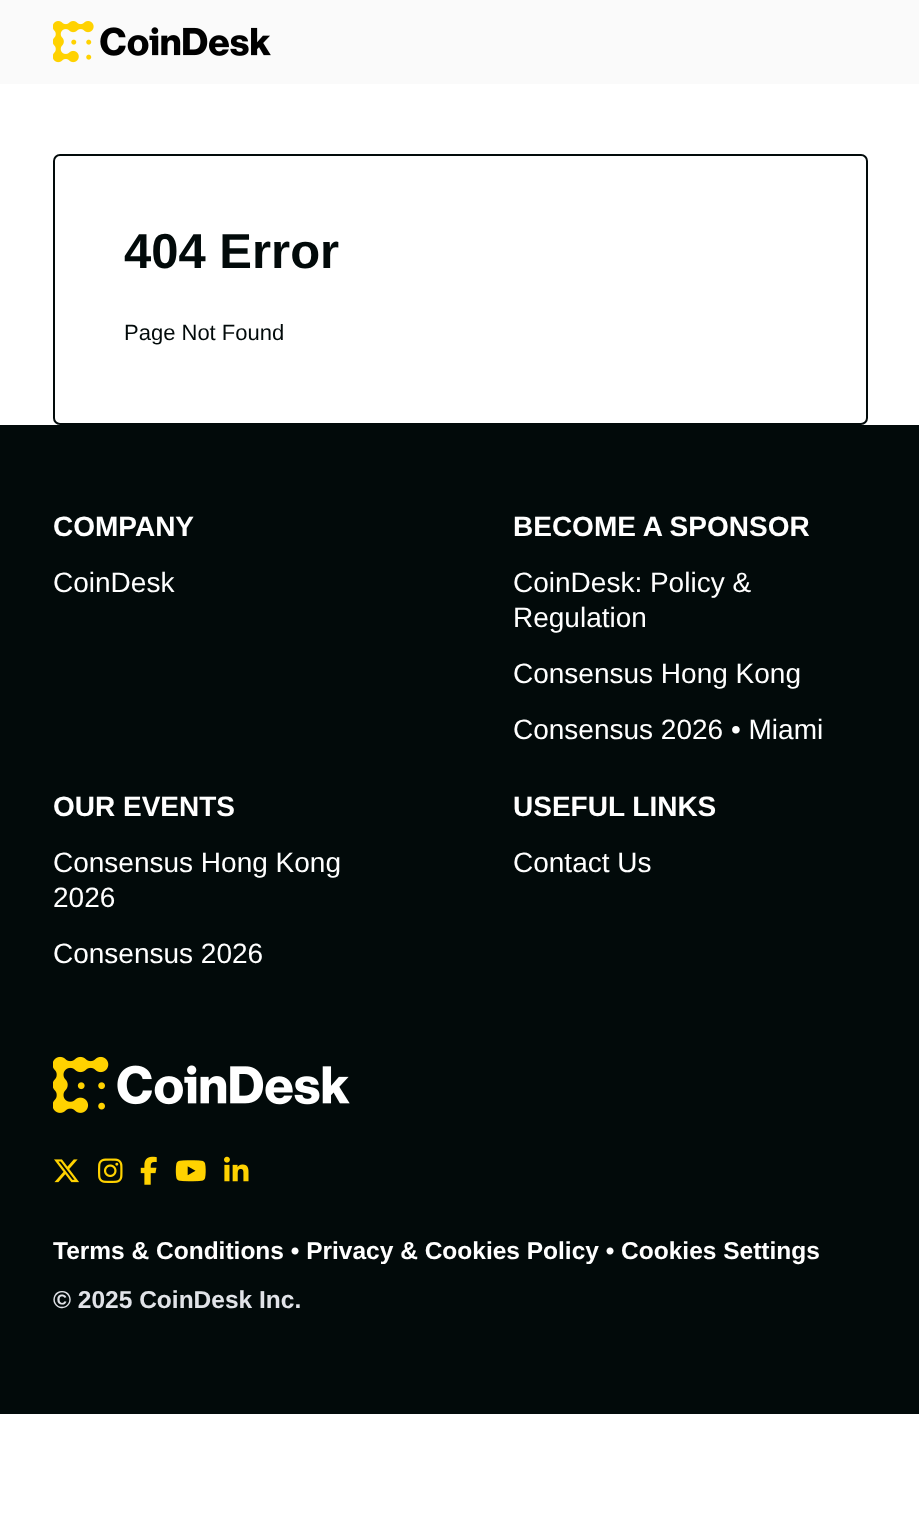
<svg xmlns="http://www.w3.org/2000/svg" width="919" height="1523">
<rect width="100%" height="100%" fill="#fff"/>
<rect width="919" height="84" fill="#fafafa"/>
<image x="53" y="21" width="218" height="42" href="media/1.png"/>
<rect x="54" y="155" width="813" height="269" rx="6" fill="none" stroke="#020a0a" stroke-width="2"/>
<text x="124" y="268" style="font-family:Liberation Sans;font-size:49px;font-weight:bold;fill:#020a0a">404 Error</text>
<text x="124" y="340" style="font-family:Liberation Sans;font-size:22px;fill:#020a0a">Page Not Found</text>
<rect y="425" width="919" height="989" fill="#020a0a"/>
<text x="53" y="536" style="font-family:Liberation Sans;font-size:28px;font-weight:bold;fill:#fff">COMPANY</text>
<text x="53" y="592" style="font-family:Liberation Sans;font-size:28px;fill:#fff">CoinDesk</text>
<text x="513" y="536" style="font-family:Liberation Sans;font-size:28px;font-weight:bold;fill:#fff">BECOME A SPONSOR</text>
<text x="513" y="592" style="font-family:Liberation Sans;font-size:28px;fill:#fff">CoinDesk: Policy &amp;</text>
<text x="513" y="627" style="font-family:Liberation Sans;font-size:28px;fill:#fff">Regulation</text>
<text x="513" y="683" style="font-family:Liberation Sans;font-size:28px;fill:#fff">Consensus Hong Kong</text>
<text x="513" y="739" style="font-family:Liberation Sans;font-size:28px;fill:#fff">Consensus 2026 • Miami</text>
<text x="53" y="816" style="font-family:Liberation Sans;font-size:28px;font-weight:bold;fill:#fff">OUR EVENTS</text>
<text x="53" y="872" style="font-family:Liberation Sans;font-size:28px;fill:#fff">Consensus Hong Kong</text>
<text x="53" y="907" style="font-family:Liberation Sans;font-size:28px;fill:#fff">2026</text>
<text x="53" y="963" style="font-family:Liberation Sans;font-size:28px;fill:#fff">Consensus 2026</text>
<text x="513" y="816" style="font-family:Liberation Sans;font-size:28px;font-weight:bold;fill:#fff">USEFUL LINKS</text>
<text x="513" y="872" style="font-family:Liberation Sans;font-size:28px;fill:#fff">Contact Us</text>
<image x="53" y="1056" width="297" height="57" href="media/2.png"/>
<image x="54" y="1159" width="25" height="24" href="media/3.png"/>
<image x="98" y="1158" width="25" height="25" href="media/4.png"/>
<image x="140" y="1156" width="17" height="29" href="media/5.png"/>
<image x="175" y="1160" width="31" height="22" href="media/6.png"/>
<image x="224" y="1156" width="25" height="26" href="media/7.png"/>
<text x="53" y="1259" style="font-family:Liberation Sans;font-size:24.5px;font-weight:bold;fill:#fff">Terms &amp; Conditions • Privacy &amp; Cookies Policy • Cookies Settings</text>
<text x="53" y="1308" style="font-family:Liberation Sans;font-size:24.5px;font-weight:bold;fill:#e1e3e8">© 2025 CoinDesk Inc.</text>
</svg>
